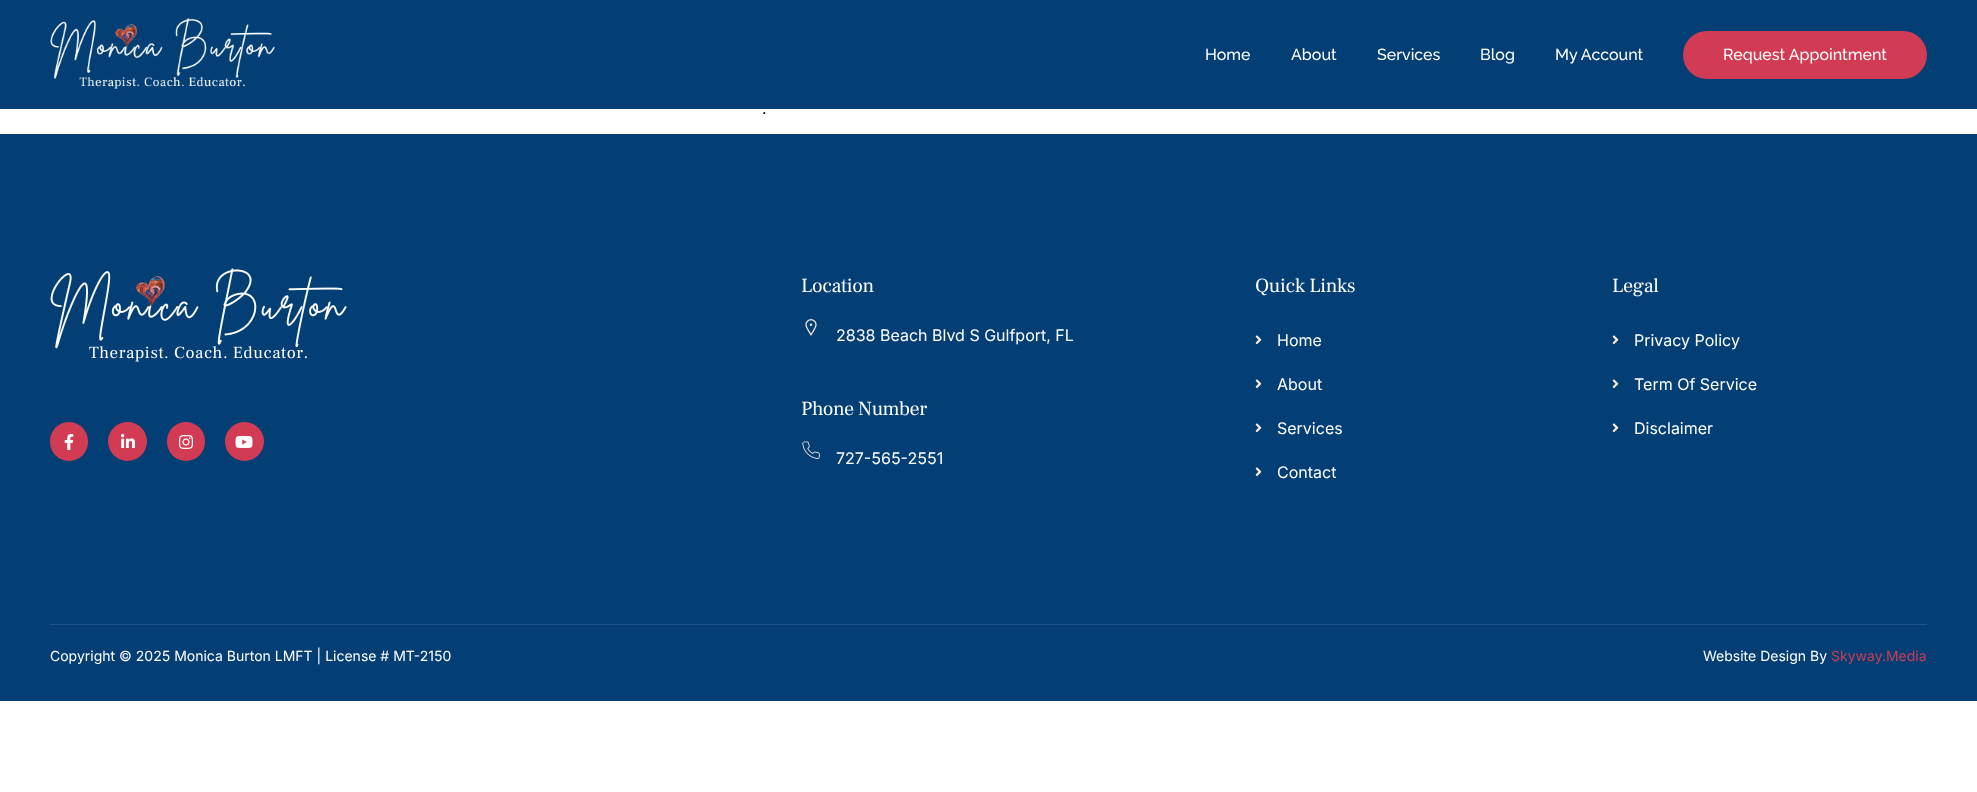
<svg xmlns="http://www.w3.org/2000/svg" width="1977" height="792">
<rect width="100%" height="100%" fill="#fff"/>
<rect width="1977" height="109" fill="#033e74"/>
<image x="50" y="18" width="225" height="71" href="media/1.png"/>
<text x="1205" y="60" style="font-family:Raleway;font-size:16px;font-weight:500;fill:#fff">Home</text>
<text x="1291" y="60" style="font-family:Raleway;font-size:16px;font-weight:500;fill:#fff">About</text>
<text x="1377" y="60" style="font-family:Raleway;font-size:16px;font-weight:500;fill:#fff">Services</text>
<text x="1480" y="60" style="font-family:Raleway;font-size:16px;font-weight:500;fill:#fff">Blog</text>
<text x="1555" y="60" style="font-family:Raleway;font-size:16px;font-weight:500;fill:#fff">My Account</text>
<rect x="1683" y="31" width="244" height="48" rx="24" fill="#d13b53"/>
<text x="1723" y="60" style="font-family:Raleway;font-size:16px;font-weight:500;fill:#fff">Request Appointment</text>
<text x="762" y="114" style="font-family:Inter;font-size:16px;fill:#000">.</text>
<rect y="134" width="1977" height="567" fill="#033e74"/>
<image x="50" y="268" width="297" height="94" href="media/2.png"/>
<rect x="50" y="422" width="38" height="39" rx="19" fill="#d13b53"/>
<image x="64" y="434" width="10" height="16" href="media/3.png"/>
<circle cx="127.5" cy="441.5" r="19.5" fill="#d13b53"/>
<image x="121" y="434" width="14" height="14" href="media/4.png"/>
<rect x="167" y="422" width="38" height="39" rx="19" fill="#d13b53"/>
<image x="179" y="435" width="14" height="14" href="media/5.png"/>
<circle cx="244.5" cy="441.5" r="19.5" fill="#d13b53"/>
<image x="235" y="436" width="18" height="12" href="media/6.png"/>
<text x="801" y="292" style="font-family:Frank Ruhl Libre;font-size:20px;letter-spacing:-0.4px;fill:#fff">Location</text>
<image x="805" y="319" width="12" height="17" href="media/7.png"/>
<text x="836" y="341" style="font-family:Inter;font-size:16px;fill:#fff">2838 Beach Blvd S Gulfport, FL</text>
<text x="801" y="415" style="font-family:Frank Ruhl Libre;font-size:20px;letter-spacing:-0.4px;fill:#fff">Phone Number</text>
<image x="802" y="441" width="18" height="18" href="media/8.png"/>
<text x="836" y="464" style="font-family:Inter;font-size:16px;fill:#fff">727-565-2551</text>
<text x="1255" y="292" style="font-family:Frank Ruhl Libre;font-size:20px;letter-spacing:-0.4px;fill:#fff">Quick Links</text>
<image x="1255" y="335" width="7" height="10" href="media/9.png"/>
<text x="1277" y="346" style="font-family:Inter;font-size:16px;fill:#fff">Home</text>
<image x="1255" y="379" width="7" height="10" href="media/9.png"/>
<text x="1277" y="390" style="font-family:Inter;font-size:16px;fill:#fff">About</text>
<image x="1255" y="423" width="7" height="10" href="media/9.png"/>
<text x="1277" y="434" style="font-family:Inter;font-size:16px;fill:#fff">Services</text>
<image x="1255" y="467" width="7" height="10" href="media/9.png"/>
<text x="1277" y="478" style="font-family:Inter;font-size:16px;fill:#fff">Contact</text>
<text x="1612" y="292" style="font-family:Frank Ruhl Libre;font-size:20px;letter-spacing:-0.4px;fill:#fff">Legal</text>
<image x="1612" y="335" width="7" height="10" href="media/9.png"/>
<text x="1634" y="346" style="font-family:Inter;font-size:16px;fill:#fff">Privacy Policy</text>
<image x="1612" y="379" width="7" height="10" href="media/9.png"/>
<text x="1634" y="390" style="font-family:Inter;font-size:16px;fill:#fff">Term Of Service</text>
<image x="1612" y="423" width="7" height="10" href="media/9.png"/>
<text x="1634" y="434" style="font-family:Inter;font-size:16px;fill:#fff">Disclaimer</text>
<rect x="50" y="624" width="1877" height="1" fill="#215585"/>
<text x="50" y="661" style="font-family:Inter;font-size:14px;fill:#fff">Copyright © 2025 Monica Burton LMFT | License # MT-2150</text>
<text x="1703" y="661" style="font-family:Inter;font-size:14px;fill:#fff">Website Design By</text>
<text x="1831" y="661" style="font-family:Inter;font-size:14px;fill:#d03c53">Skyway.Media</text>
</svg>
